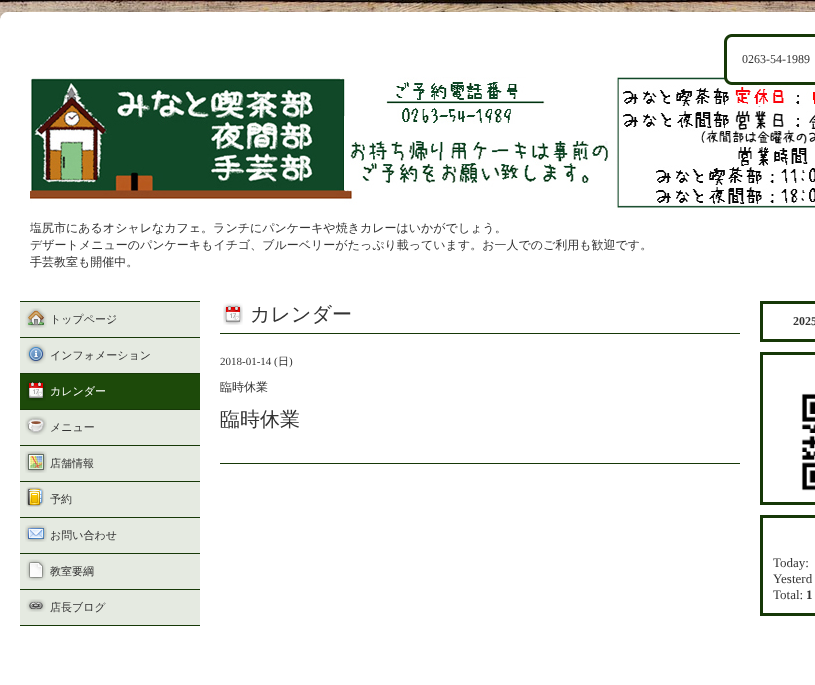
<svg xmlns="http://www.w3.org/2000/svg" width="815" height="685">
<rect width="100%" height="100%" fill="#fff"/>
<image x="0" y="0" width="815" height="16" href="media/1.png"/>
<rect x="4" y="12" width="1" height="1" fill="#d8cbbf"/>
<rect x="5" y="12" width="1" height="1" fill="#ece5df"/>
<rect x="6" y="12" width="1" height="1" fill="#f7f5f2"/>
<rect x="7" y="12" width="1" height="1" fill="#fdfdfc"/>
<rect x="1" y="14" width="1" height="1" fill="#bdae9f"/>
<rect x="2" y="13" width="1" height="1" fill="#bfb0a1"/>
<rect x="3" y="13" width="1" height="1" fill="#e6e0da"/>
<rect x="4" y="13" width="1" height="7" fill="#fff"/>
<rect x="5" y="13" width="3" height="7" fill="#fff"/>
<rect x="1" y="15" width="1" height="1" fill="#e7e0da"/>
<rect x="2" y="14" width="1" height="1" fill="#efeae6"/>
<rect x="3" y="14" width="1" height="6" fill="#fff"/>
<rect y="16" width="1" height="1" fill="#d4c7bb"/>
<rect x="2" y="15" width="1" height="5" fill="#fff"/>
<rect y="17" width="1" height="1" fill="#dbd5d0"/>
<rect y="18" width="1" height="1" fill="#f4f2f0"/>
<rect y="19" width="1" height="1" fill="#fdfcfc"/>
<rect x="8" y="12" width="807" height="4" fill="#fff"/>
<rect x="724" y="42" width="3" height="35" fill="#163807"/>
<rect x="728" y="34" width="1" height="1" fill="#d5dbd2"/>
<rect x="729" y="34" width="1" height="1" fill="#788c6f"/>
<rect x="730" y="34" width="1" height="1" fill="#3b572e"/>
<rect x="731" y="34" width="1" height="1" fill="#1d3e0e"/>
<rect x="725" y="36" width="1" height="1" fill="#f7f8f6"/>
<rect x="726" y="35" width="1" height="1" fill="#f7f8f6"/>
<rect x="727" y="35" width="1" height="1" fill="#768a6d"/>
<rect x="728" y="35" width="1" height="1" fill="#173908"/>
<rect x="729" y="35" width="3" height="2" fill="#163807"/>
<rect x="725" y="37" width="1" height="1" fill="#768a6d"/>
<rect x="726" y="36" width="1" height="1" fill="#506a45"/>
<rect x="727" y="36" width="1" height="3" fill="#163807"/>
<rect x="728" y="36" width="1" height="2" fill="#163807"/>
<rect x="726" y="37" width="1" height="5" fill="#163807"/>
<rect x="729" y="37" width="1" height="1" fill="#5a724f"/>
<rect x="730" y="37" width="1" height="1" fill="#c3cbbf"/>
<rect x="731" y="37" width="1" height="1" fill="#f3f5f2"/>
<rect x="724" y="38" width="1" height="1" fill="#d5dbd2"/>
<rect x="725" y="38" width="1" height="1" fill="#173908"/>
<rect x="728" y="38" width="1" height="1" fill="#8b9c83"/>
<rect x="724" y="39" width="1" height="1" fill="#788c6f"/>
<rect x="725" y="39" width="1" height="3" fill="#163807"/>
<rect x="727" y="39" width="1" height="1" fill="#5a724f"/>
<rect x="724" y="40" width="1" height="1" fill="#3b572e"/>
<rect x="727" y="40" width="1" height="1" fill="#c3cbbf"/>
<rect x="724" y="41" width="1" height="1" fill="#1d3e0e"/>
<rect x="727" y="41" width="1" height="1" fill="#f3f5f2"/>
<rect x="732" y="34" width="83" height="3" fill="#163807"/>
<text x="742" y="63" style="font-family:Liberation Serif;font-size:12px;fill:#333">0263-54-1989</text>
<image x="30" y="77" width="785" height="131" href="media/2.png"/>
<rect x="724" y="77" width="1" height="1" fill="#1b3c0d"/>
<rect x="725" y="77" width="1" height="3" fill="#163807"/>
<rect x="726" y="77" width="1" height="5" fill="#163807"/>
<rect x="727" y="77" width="1" height="1" fill="#f3f5f2"/>
<rect x="728" y="77" width="1" height="3" fill="#fff"/>
<rect x="729" y="77" width="3" height="4" fill="#fff"/>
<rect x="724" y="78" width="1" height="1" fill="#153b0c"/>
<rect x="727" y="78" width="1" height="1" fill="#c3cbbf"/>
<rect x="724" y="79" width="1" height="1" fill="#617a5a"/>
<rect x="727" y="79" width="1" height="1" fill="#5a724f"/>
<rect x="724" y="80" width="1" height="1" fill="#d5dbd2"/>
<rect x="725" y="80" width="1" height="1" fill="#173908"/>
<rect x="727" y="80" width="1" height="3" fill="#163807"/>
<rect x="728" y="80" width="1" height="1" fill="#8b9c83"/>
<rect x="725" y="81" width="1" height="1" fill="#768a6d"/>
<rect x="728" y="81" width="1" height="2" fill="#163807"/>
<rect x="729" y="81" width="1" height="1" fill="#5a724f"/>
<rect x="730" y="81" width="1" height="1" fill="#c3cbbf"/>
<rect x="731" y="81" width="1" height="1" fill="#f3f5f2"/>
<rect x="725" y="82" width="1" height="1" fill="#f7f8f6"/>
<rect x="726" y="82" width="1" height="1" fill="#506a45"/>
<rect x="729" y="82" width="3" height="2" fill="#163807"/>
<rect x="726" y="83" width="1" height="1" fill="#f7f8f6"/>
<rect x="727" y="83" width="1" height="1" fill="#768a6d"/>
<rect x="728" y="83" width="1" height="1" fill="#173908"/>
<rect x="728" y="84" width="1" height="1" fill="#d5dbd2"/>
<rect x="729" y="84" width="1" height="1" fill="#788c6f"/>
<rect x="730" y="84" width="1" height="1" fill="#3b572e"/>
<rect x="731" y="84" width="1" height="1" fill="#1d3e0e"/>
<rect x="732" y="77" width="83" height="3" fill="#fff"/>
<rect x="732" y="82" width="83" height="3" fill="#163807"/>
<text x="30" y="232" style="font-family:WenQuanYi Zen Hei;font-size:12px;font-weight:500;fill:#333">塩尻市にあるオシャレなカフェ。ランチにパンケーキや焼きカレーはいかがでしょう。</text>
<text x="30" y="249" style="font-family:WenQuanYi Zen Hei;font-size:12px;font-weight:500;fill:#333">デザートメニューのパンケーキもイチゴ、ブルーベリーがたっぷり載っています。お一人でのご利用も歓迎です。</text>
<text x="30" y="266" style="font-family:WenQuanYi Zen Hei;font-size:12px;font-weight:500;fill:#333">手芸教室も開催中。</text>
<rect x="20" y="301" width="180" height="1" fill="#163807"/>
<rect x="20" y="337" width="180" height="1" fill="#163807"/>
<rect x="20" y="302" width="180" height="35" fill="#e5eae1"/>
<image x="25" y="308" width="22" height="20" href="media/3.png"/>
<text x="50" y="323" style="font-family:WenQuanYi Zen Hei;font-size:11px;font-weight:500;fill:#333">トップページ</text>
<rect x="20" y="373" width="180" height="1" fill="#163807"/>
<rect x="20" y="338" width="180" height="35" fill="#e5eae1"/>
<image x="26" y="344" width="20" height="20" href="media/4.png"/>
<text x="50" y="359" style="font-family:WenQuanYi Zen Hei;font-size:11px;font-weight:500;fill:#333">インフォメーション</text>
<rect x="20" y="409" width="180" height="1" fill="#163807"/>
<rect x="20" y="374" width="180" height="35" fill="#1d4a0a"/>
<image x="26" y="380" width="20" height="21" href="media/5.png"/>
<text x="50" y="395" style="font-family:WenQuanYi Zen Hei;font-size:11px;font-weight:500;fill:#fff">カレンダー</text>
<rect x="20" y="445" width="180" height="1" fill="#163807"/>
<rect x="20" y="410" width="180" height="35" fill="#e5eae1"/>
<image x="25" y="416" width="22" height="19" href="media/6.png"/>
<text x="50" y="431" style="font-family:WenQuanYi Zen Hei;font-size:11px;font-weight:500;fill:#333">メニュー</text>
<rect x="20" y="481" width="180" height="1" fill="#163807"/>
<rect x="20" y="446" width="180" height="35" fill="#e5eae1"/>
<image x="25" y="451" width="22" height="22" href="media/7.png"/>
<text x="50" y="467" style="font-family:WenQuanYi Zen Hei;font-size:11px;font-weight:500;fill:#333">店舗情報</text>
<rect x="20" y="517" width="180" height="1" fill="#163807"/>
<rect x="20" y="482" width="180" height="35" fill="#e5eae1"/>
<image x="26" y="487" width="18" height="20" href="media/8.png"/>
<text x="50" y="503" style="font-family:WenQuanYi Zen Hei;font-size:11px;font-weight:500;fill:#333">予約</text>
<rect x="20" y="553" width="180" height="1" fill="#163807"/>
<rect x="20" y="518" width="180" height="35" fill="#e5eae1"/>
<image x="25" y="525" width="22" height="17" href="media/9.png"/>
<text x="50" y="539" style="font-family:WenQuanYi Zen Hei;font-size:11px;font-weight:500;fill:#333">お問い合わせ</text>
<rect x="20" y="589" width="180" height="1" fill="#163807"/>
<rect x="20" y="554" width="180" height="35" fill="#e5eae1"/>
<image x="26" y="559" width="20" height="22" href="media/10.png"/>
<text x="50" y="575" style="font-family:WenQuanYi Zen Hei;font-size:11px;font-weight:500;fill:#333">教室要綱</text>
<rect x="20" y="625" width="180" height="1" fill="#163807"/>
<rect x="20" y="590" width="180" height="35" fill="#e5eae1"/>
<image x="26" y="599" width="20" height="13" href="media/11.png"/>
<text x="50" y="611" style="font-family:WenQuanYi Zen Hei;font-size:11px;font-weight:500;fill:#333">店長ブログ</text>
<image x="223" y="303" width="20" height="22" href="media/12.png"/>
<rect x="220" y="333" width="520" height="1" fill="#163807"/>
<text x="250" y="321" style="font-family:WenQuanYi Zen Hei;font-size:20px;font-weight:500;fill:#333">カレンダー</text>
<rect x="220" y="463" width="520" height="1" fill="#163807"/>
<text x="220" y="365" style="font-family:Liberation Serif;font-size:11px;fill:#333">2018-01-14 (</text>
<text x="278" y="365" style="font-family:WenQuanYi Zen Hei;font-size:11px;font-weight:500;fill:#333">日</text>
<text x="289" y="365" style="font-family:Liberation Serif;font-size:11px;fill:#333">)</text>
<text x="220" y="391" style="font-family:WenQuanYi Zen Hei;font-size:12px;font-weight:500;fill:#333">臨時休業</text>
<text x="220" y="426" style="font-family:WenQuanYi Zen Hei;font-size:20px;font-weight:500;fill:#333">臨時休業</text>
<rect x="761.5" y="302.5" width="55" height="38" fill="none" stroke="#163807" stroke-width="3"/>
<text x="793" y="325" style="font-family:Liberation Serif;font-size:12px;font-weight:bold;fill:#333">2025</text>
<rect x="761.5" y="353.5" width="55" height="150" fill="none" stroke="#163807" stroke-width="3"/>
<image x="801" y="393" width="14" height="98" href="media/13.png"/>
<rect x="761.5" y="516.5" width="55" height="98" fill="none" stroke="#163807" stroke-width="3"/>
<text x="773" y="567" style="font-family:Liberation Serif;font-size:13px;fill:#333">Today:</text>
<text x="773" y="583" style="font-family:Liberation Serif;font-size:13px;fill:#333">Yesterd</text>
<text x="773" y="599" style="font-family:Liberation Serif;font-size:13px;fill:#333">Total:</text>
<text x="806" y="599" style="font-family:Liberation Serif;font-size:13px;font-weight:bold;fill:#333">1</text>
</svg>
